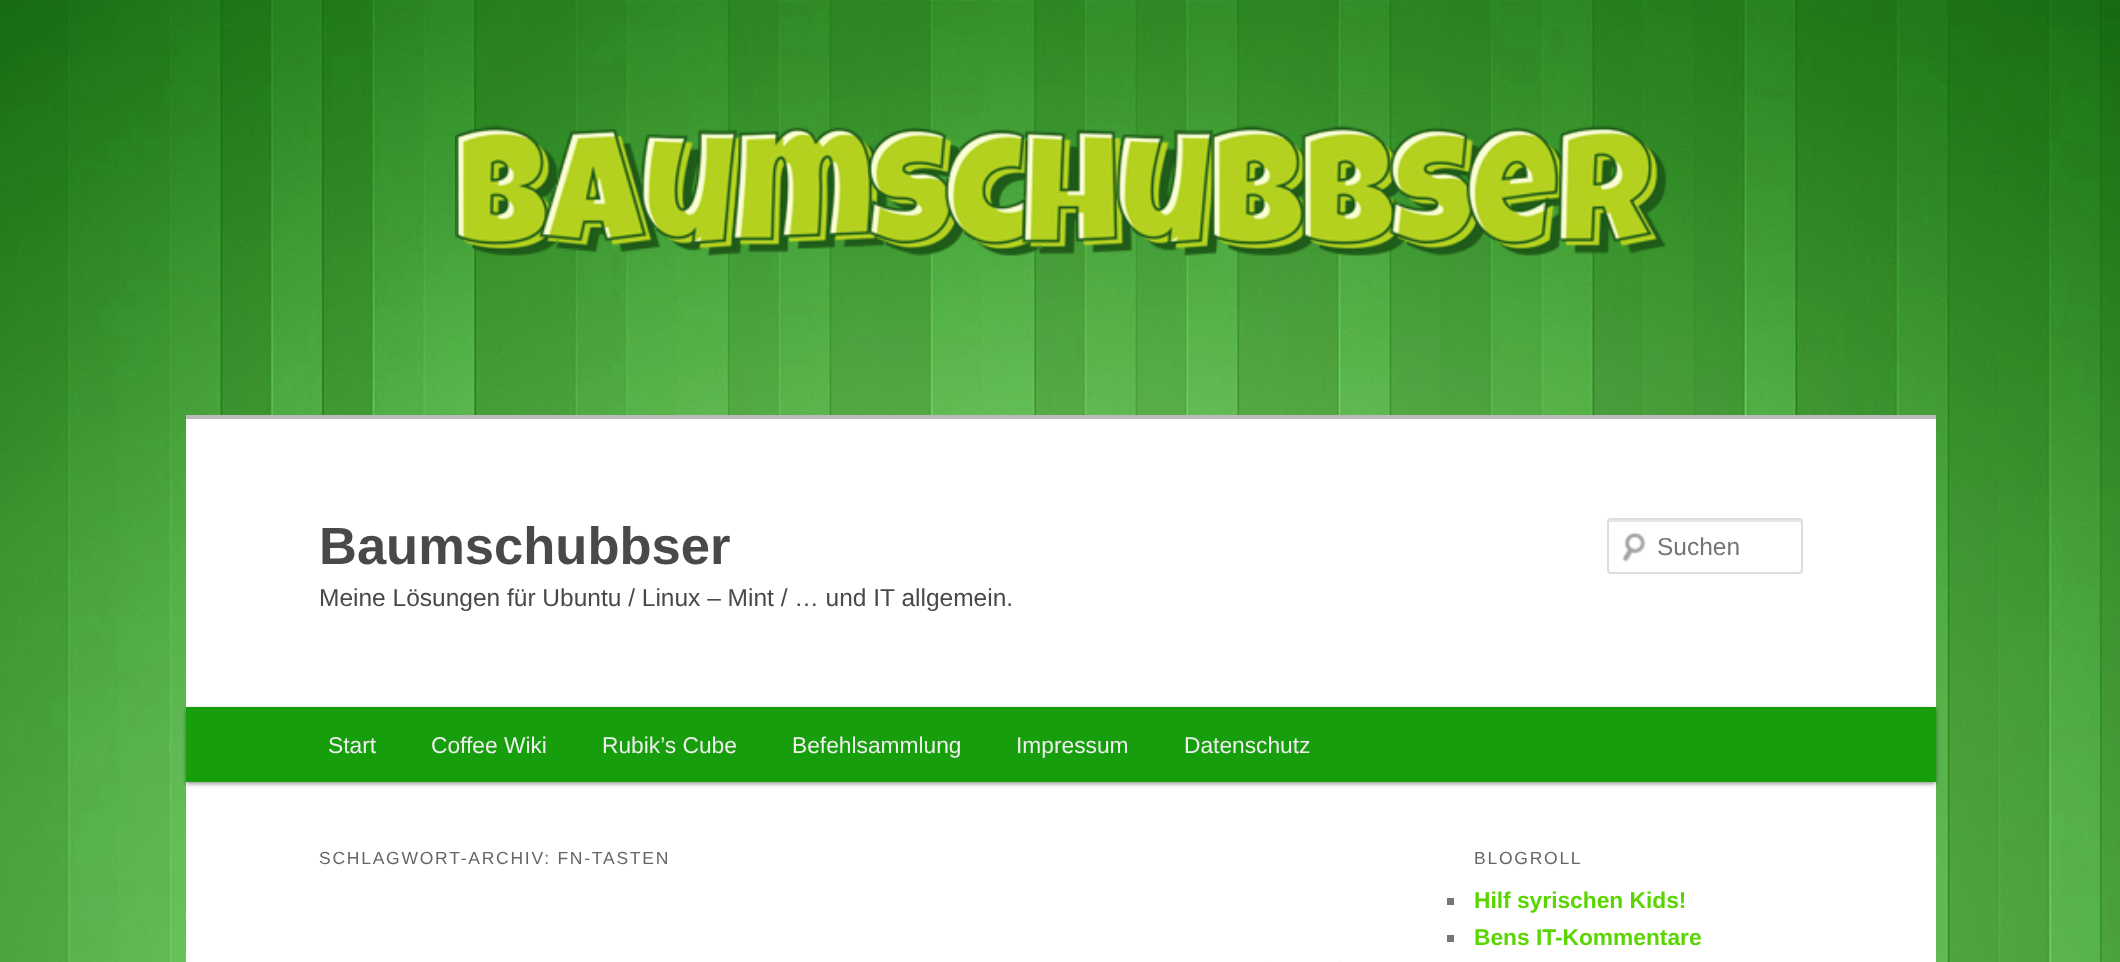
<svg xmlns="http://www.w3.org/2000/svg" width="2120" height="962">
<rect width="100%" height="100%" fill="#fff"/>
<image x="0" y="0" width="2120" height="962" href="media/1.png"/>
<image x="455" y="125" width="1211" height="131" href="media/2.png"/>
<rect x="186" y="419" width="1750" height="543" fill="#fff"/>
<rect x="186" y="415" width="1750" height="4" fill="#bbb"/>
<text x="319" y="564" style="font-family:Liberation Sans;font-size:52.5px;font-weight:bold;fill:#494949">Baumschubbser</text>
<text x="319" y="606" style="font-family:Liberation Sans;font-size:24.5px;fill:#494949">Meine Lösungen für Ubuntu / Linux – Mint / … und IT allgemein.</text>
<image x="1622" y="532" width="24" height="30" href="media/3.png"/>
<path d="M1610 522h189l2 1v-1c0-1-1-2-2-2h-189c-1 0-2 1-2 2v1c0-1 1-1 2-1z" fill="#e6e6e6"/>
<rect x="1608" y="519" width="194" height="54" rx="3" fill="none" stroke="#ddd" stroke-width="2"/>
<text x="1657" y="555" style="font-family:Liberation Sans;font-size:24.5px;fill:#757575">Suchen</text>
<rect x="186" y="709" width="1750" height="75" fill="#00000066" filter="blur(2px)"/>
<rect x="186" y="707" width="1750" height="75" fill="#169e0c"/>
<text x="328" y="753" style="font-family:Liberation Sans;font-size:22.75px;fill:#eee">Start</text>
<text x="431" y="753" style="font-family:Liberation Sans;font-size:22.75px;fill:#eee">Coffee Wiki</text>
<text x="602" y="753" style="font-family:Liberation Sans;font-size:22.75px;fill:#eee">Rubik’s Cube</text>
<text x="792" y="753" style="font-family:Liberation Sans;font-size:22.75px;fill:#eee">Befehlsammlung</text>
<text x="1016" y="753" style="font-family:Liberation Sans;font-size:22.75px;fill:#eee">Impressum</text>
<text x="1184" y="753" style="font-family:Liberation Sans;font-size:22.75px;fill:#eee">Datenschutz</text>
<text x="319" y="864" style="font-family:Liberation Sans;font-size:17.5px;letter-spacing:1.75px;fill:#666">SCHLAGWORT-ARCHIV: FN-TASTEN</text>
<rect x="1265" y="961" width="76" height="1" fill="#f1f1f1"/>
<image x="1265" y="961" width="76" height="1" href="media/4.png"/>
<text x="1474" y="864" style="font-family:Liberation Sans;font-size:17.5px;letter-spacing:1.75px;fill:#666">BLOGROLL</text>
<rect x="1447" y="898" width="7" height="7" fill="#777"/>
<text x="1474" y="908" style="font-family:Liberation Sans;font-size:22.75px;font-weight:bold;fill:#59d600">Hilf syrischen Kids!</text>
<rect x="1447" y="935" width="7" height="7" fill="#777"/>
<text x="1474" y="945" style="font-family:Liberation Sans;font-size:22.75px;font-weight:bold;fill:#59d600">Bens IT-Kommentare</text>
</svg>
